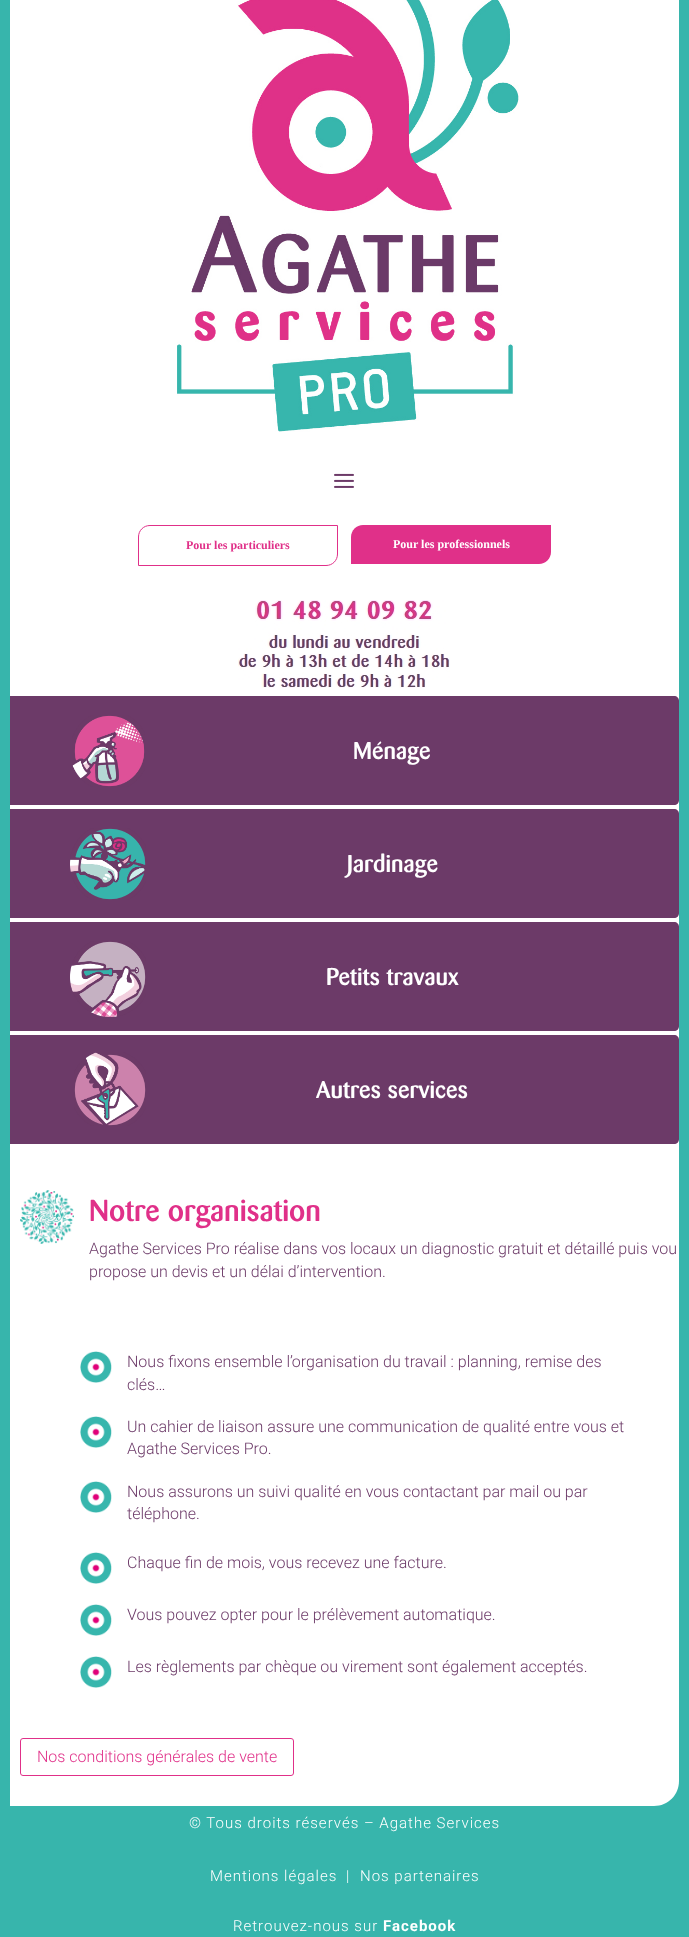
<svg xmlns="http://www.w3.org/2000/svg" width="689" height="1937">
<rect width="100%" height="100%" fill="#37b5ac"/>
<rect x="10" width="669" height="693" fill="#fff"/>
<image x="177" y="0" width="342" height="432" href="media/1.png"/>
<image x="334" y="473" width="20" height="15" href="media/2.png"/>
<path d="M150 525.5h187.5v28.5c0 6.5-5 11.5-11.5 11.5h-187.5v-28.5c0-6.5 5-11.5 11.5-11.5z" fill="none" stroke="#e03089"/>
<text x="186" y="549" style="font-family:Liberation Serif;font-size:12px;font-weight:bold;fill:#e03089">Pour les particuliers</text>
<path d="M363 525h188v27c0 6.5-5.5 12-12 12h-188v-27c0-6.5 5.5-12 12-12z" fill="#e03089"/>
<text x="393" y="548" style="font-family:Liberation Serif;font-size:12px;font-weight:bold;fill:#fff">Pour les professionnels</text>
<image x="238" y="600" width="212" height="88" href="media/3.png"/>
<path d="M10 693h669v1088c0 14-11 25-25 25h-644z" fill="#fff"/>
<path d="M10 696h664c3 0 5 2 5 5v99c0 3-2 5-5 5h-664z" fill="#6c3a68"/>
<image x="72" y="715" width="73" height="72" href="media/4.png"/>
<text x="353" y="759" style="font-family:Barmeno;font-size:24px;font-weight:500;fill:#fff">Ménage</text>
<path d="M10 809h664c3 0 5 2 5 5v99c0 3-2 5-5 5h-664z" fill="#6c3a68"/>
<image x="70" y="828" width="76" height="72" href="media/5.png"/>
<text x="347" y="872" style="font-family:Barmeno;font-size:24px;font-weight:500;fill:#fff">Jardinage</text>
<path d="M10 922h664c3 0 5 2 5 5v99c0 3-2 5-5 5h-664z" fill="#6c3a68"/>
<image x="70" y="941" width="76" height="76" href="media/6.png"/>
<text x="326" y="985" style="font-family:Barmeno;font-size:24px;font-weight:500;fill:#fff">Petits travaux</text>
<path d="M10 1035h664c3 0 5 2 5 5v99c0 3-2 5-5 5h-664z" fill="#6c3a68"/>
<image x="74" y="1052" width="72" height="74" href="media/7.png"/>
<text x="316" y="1098" style="font-family:Barmeno;font-size:24px;font-weight:500;fill:#fff">Autres services</text>
<image x="20" y="1190" width="54" height="54" href="media/8.png"/>
<text x="89" y="1221" style="font-family:Barmeno;font-size:30px;font-weight:500;fill:#e03089">Notre organisation</text>
<text x="89" y="1254" style="font-family:Roboto;font-size:16px;font-weight:300;fill:#6c3a68">Agathe Services Pro réalise dans vos locaux un diagnostic gratuit et détaillé puis vou</text>
<text x="89" y="1277" style="font-family:Roboto;font-size:16px;font-weight:300;fill:#6c3a68">propose un devis et un délai d’intervention.</text>
<image x="80" y="1351" width="32" height="32" href="media/9.png"/>
<text x="127" y="1367" style="font-family:Roboto;font-size:16px;font-weight:300;fill:#6c3a68">Nous fixons ensemble l’organisation du travail : planning, remise des</text>
<text x="127" y="1390" style="font-family:Roboto;font-size:16px;font-weight:300;fill:#6c3a68">clés…</text>
<image x="80" y="1416" width="32" height="32" href="media/9.png"/>
<text x="127" y="1432" style="font-family:Roboto;font-size:16px;font-weight:300;fill:#6c3a68">Un cahier de liaison assure une communication de qualité entre vous et</text>
<text x="127" y="1454" style="font-family:Roboto;font-size:16px;font-weight:300;fill:#6c3a68">Agathe Services Pro.</text>
<image x="80" y="1481" width="32" height="32" href="media/9.png"/>
<text x="127" y="1497" style="font-family:Roboto;font-size:16px;font-weight:300;fill:#6c3a68">Nous assurons un suivi qualité en vous contactant par mail ou par</text>
<text x="127" y="1519" style="font-family:Roboto;font-size:16px;font-weight:300;fill:#6c3a68">téléphone.</text>
<image x="80" y="1552" width="32" height="32" href="media/9.png"/>
<text x="127" y="1568" style="font-family:Roboto;font-size:16px;font-weight:300;fill:#6c3a68">Chaque fin de mois, vous recevez une facture.</text>
<image x="80" y="1604" width="32" height="32" href="media/9.png"/>
<text x="127" y="1620" style="font-family:Roboto;font-size:16px;font-weight:300;fill:#6c3a68">Vous pouvez opter pour le prélèvement automatique.</text>
<image x="80" y="1656" width="32" height="32" href="media/9.png"/>
<text x="127" y="1672" style="font-family:Roboto;font-size:16px;font-weight:300;fill:#6c3a68">Les règlements par chèque ou virement sont également acceptés.</text>
<rect x="20.5" y="1738.5" width="273" height="37" rx="2.5" fill="none" stroke="#e03089"/>
<text x="37" y="1762" style="font-family:Roboto;font-size:16px;font-weight:300;fill:#e03089">Nos conditions générales de vente</text>
<text x="189" y="1828" style="font-family:Roboto;font-size:15px;font-weight:300;letter-spacing:1px;fill:#fff">© Tous droits réservés – Agathe Services</text>
<text x="210" y="1881" style="font-family:Roboto;font-size:15px;font-weight:300;letter-spacing:1px;fill:#fff">Mentions légales</text>
<text x="346" y="1881" style="font-family:Roboto;font-size:15px;font-weight:300;letter-spacing:1px;fill:#fff">|</text>
<text x="360" y="1881" style="font-family:Roboto;font-size:15px;font-weight:300;letter-spacing:1px;fill:#fff">Nos partenaires</text>
<text x="233" y="1931" style="font-family:Roboto;font-size:15px;font-weight:300;letter-spacing:1px;fill:#fff">Retrouvez-nous sur</text>
<text x="383" y="1931" style="font-family:Roboto;font-size:15px;font-weight:bold;letter-spacing:1px;fill:#fff">Facebook</text>
</svg>
